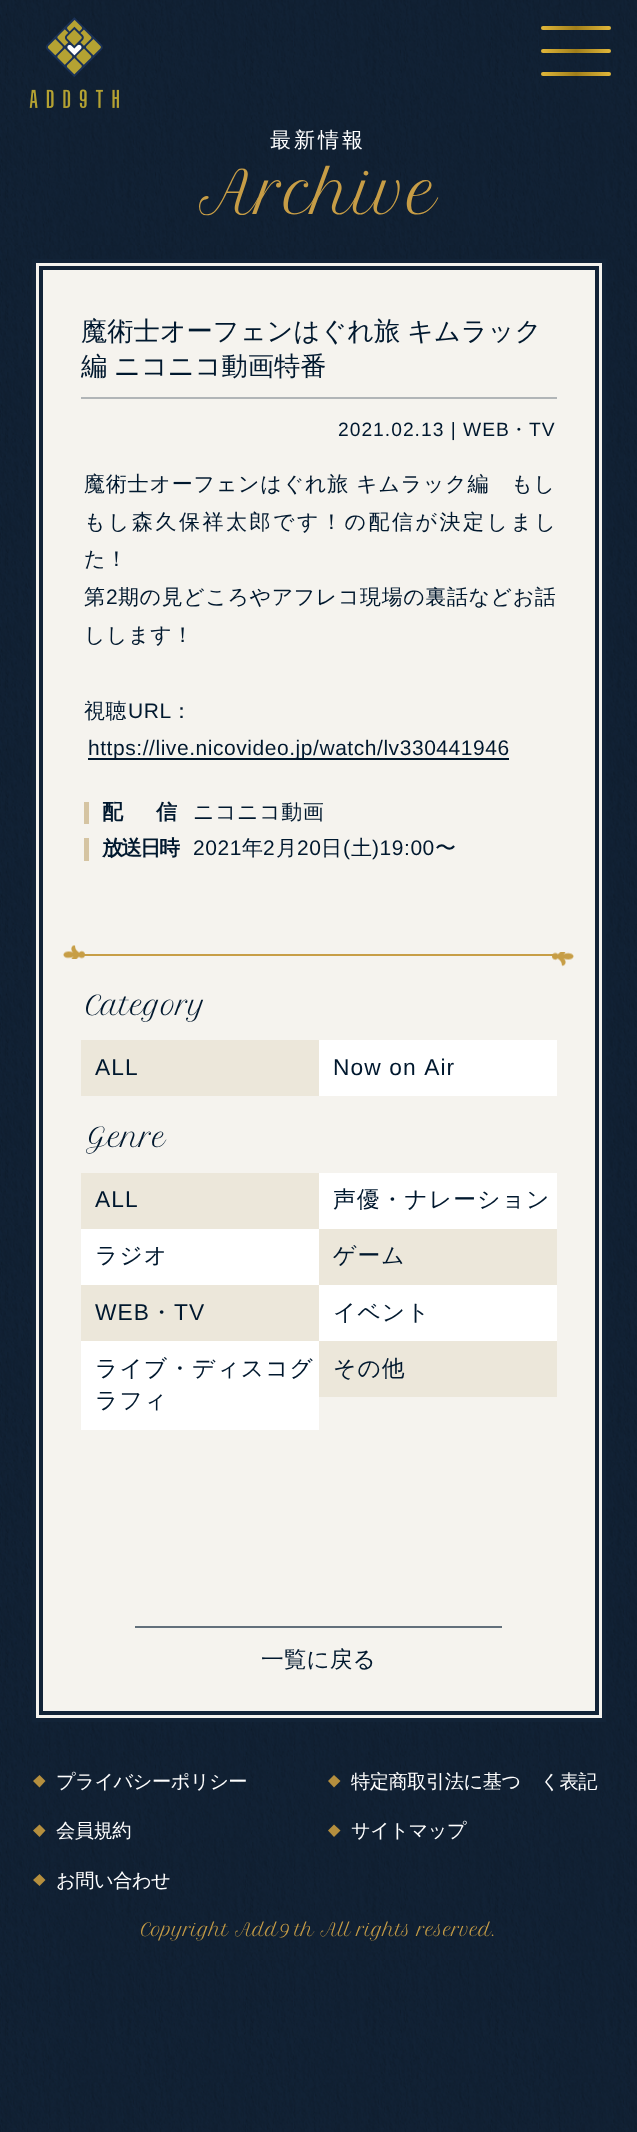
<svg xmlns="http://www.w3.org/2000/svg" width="637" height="2132">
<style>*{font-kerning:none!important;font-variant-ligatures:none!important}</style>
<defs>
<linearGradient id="g1" gradientUnits="userSpaceOnUse" x1="541" y1="28" x2="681" y2="28"><stop offset="0" stop-color="#e1b73a"/><stop offset="0.25" stop-color="#a07e1a"/><stop offset="0.5" stop-color="#e1b73a"/><stop offset="0.75" stop-color="#a07e1a"/><stop offset="1" stop-color="#e1b73a"/></linearGradient>
<linearGradient id="g2" gradientUnits="userSpaceOnUse" x1="541" y1="51" x2="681" y2="51"><stop offset="0" stop-color="#e1b73a"/><stop offset="0.25" stop-color="#a07e1a"/><stop offset="0.5" stop-color="#e1b73a"/><stop offset="0.75" stop-color="#a07e1a"/><stop offset="1" stop-color="#e1b73a"/></linearGradient>
<linearGradient id="g3" gradientUnits="userSpaceOnUse" x1="541" y1="74" x2="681" y2="74"><stop offset="0" stop-color="#e1b73a"/><stop offset="0.25" stop-color="#a07e1a"/><stop offset="0.5" stop-color="#e1b73a"/><stop offset="0.75" stop-color="#a07e1a"/><stop offset="1" stop-color="#e1b73a"/></linearGradient>
</defs>
<rect width="100%" height="100%" fill="#fff"/>
<image x="0" y="0" width="637" height="2132" href="media/1.png"/>
<image x="29" y="17" width="90" height="91" href="media/2.png"/>
<rect x="541" y="26" width="70" height="4" rx="2" fill="url(#g1)"/>
<rect x="541" y="49" width="70" height="4" rx="2" fill="url(#g2)"/>
<rect x="541" y="72" width="70" height="4" rx="2" fill="url(#g3)"/>
<text x="270" y="147" style="font-family:WenQuanYi Zen Hei;font-size:21px;font-weight:500;letter-spacing:3px;fill:#fff">最新情報</text>
<text x="199" y="214" style="font-family:Petit Formal Script;font-size:57.75px;fill:#c79d46">Archive</text>
<rect x="34" y="261" width="570" height="1459" fill="#f5f3ee" stroke="#122337" stroke-width="4"/>
<rect x="41" y="268" width="556" height="1445" fill="none" stroke="#122337" stroke-width="4"/>
<rect x="81" y="397" width="476" height="2" fill="#b1b5b7"/>
<text x="81" y="340" word-spacing="-1" style="font-family:WenQuanYi Zen Hei;font-size:26.25px;font-weight:500;fill:#00182e">魔術士オーフェンはぐれ旅 キムラック</text>
<text x="81" y="375" word-spacing="-1" style="font-family:WenQuanYi Zen Hei;font-size:26.25px;font-weight:500;fill:#00182e">編 ニコニコ動画特番</text>
<text x="338" y="436" style="font-family:Liberation Sans;font-size:19.25px;letter-spacing:1px;fill:#00182e">2021.02.13 | WEB</text>
<text x="509" y="436" style="font-family:WenQuanYi Zen Hei;font-size:19.25px;font-weight:500;letter-spacing:1px;fill:#00182e">・</text>
<text x="529" y="436" style="font-family:Liberation Sans;font-size:19.25px;letter-spacing:1px;fill:#00182e">TV</text>
<text x="84" y="491" style="font-family:WenQuanYi Zen Hei;font-size:21px;font-weight:500;letter-spacing:0.8px;fill:#00182e">魔術士オーフェンはぐれ旅 キムラック編　もし</text>
<text x="84" y="529" style="font-family:WenQuanYi Zen Hei;font-size:21px;font-weight:500;letter-spacing:2.5px;fill:#00182e">もし森久保祥太郎です！の配信が決定しまし</text>
<text x="84" y="566" style="font-family:WenQuanYi Zen Hei;font-size:21px;font-weight:500;letter-spacing:0.55px;fill:#00182e">た！</text>
<text x="84" y="604" style="font-family:WenQuanYi Zen Hei;font-size:21px;font-weight:500;letter-spacing:0.6px;fill:#00182e">第</text>
<text x="106" y="604" style="font-family:Liberation Sans;font-size:21px;letter-spacing:0.6px;fill:#00182e">2</text>
<text x="118" y="604" style="font-family:WenQuanYi Zen Hei;font-size:21px;font-weight:500;letter-spacing:0.6px;fill:#00182e">期の見どころやアフレコ現場の裏話などお話</text>
<text x="84" y="642" style="font-family:WenQuanYi Zen Hei;font-size:21px;font-weight:500;letter-spacing:0.55px;fill:#00182e">しします！</text>
<text x="84" y="718" style="font-family:WenQuanYi Zen Hei;font-size:21px;font-weight:500;letter-spacing:0.55px;fill:#00182e">視聴</text>
<text x="128" y="718" style="font-family:Liberation Sans;font-size:21px;letter-spacing:0.55px;fill:#00182e">URL</text>
<text x="171" y="718" style="font-family:WenQuanYi Zen Hei;font-size:21px;font-weight:500;letter-spacing:0.55px;fill:#00182e">：</text>
<rect x="88" y="758" width="421" height="2" fill="#00182e"/>
<text x="88" y="755" style="font-family:Liberation Sans;font-size:21px;letter-spacing:0.55px;fill:#00182e">https://live.nicovideo.jp/watch/lv330441946</text>
<rect x="84" y="802" width="5" height="22" fill="#d5c4a2"/>
<text x="102" y="819" style="font-family:WenQuanYi Zen Hei;font-size:21px;font-weight:bold;letter-spacing:6px;fill:#00182e">配　信</text>
<text x="193" y="819" style="font-family:WenQuanYi Zen Hei;font-size:21px;font-weight:500;letter-spacing:0.55px;fill:#00182e">ニコニコ動画</text>
<rect x="84" y="838" width="5" height="23" fill="#d5c4a2"/>
<text x="102" y="855" style="font-family:WenQuanYi Zen Hei;font-size:21px;font-weight:bold;letter-spacing:-2px;fill:#00182e">放送日時</text>
<text x="193" y="855" style="font-family:Liberation Sans;font-size:21px;letter-spacing:0.55px;fill:#00182e">2021</text>
<text x="242" y="855" style="font-family:WenQuanYi Zen Hei;font-size:21px;font-weight:500;letter-spacing:0.55px;fill:#00182e">年</text>
<text x="263" y="855" style="font-family:Liberation Sans;font-size:21px;letter-spacing:0.55px;fill:#00182e">2</text>
<text x="276" y="855" style="font-family:WenQuanYi Zen Hei;font-size:21px;font-weight:500;letter-spacing:0.55px;fill:#00182e">月</text>
<text x="297" y="855" style="font-family:Liberation Sans;font-size:21px;letter-spacing:0.55px;fill:#00182e">20</text>
<text x="321" y="855" style="font-family:WenQuanYi Zen Hei;font-size:21px;font-weight:500;letter-spacing:0.55px;fill:#00182e">日</text>
<text x="343" y="855" style="font-family:Liberation Sans;font-size:21px;letter-spacing:0.55px;fill:#00182e">(</text>
<text x="351" y="855" style="font-family:WenQuanYi Zen Hei;font-size:21px;font-weight:500;letter-spacing:0.55px;fill:#00182e">土</text>
<text x="372" y="855" style="font-family:Liberation Sans;font-size:21px;letter-spacing:0.55px;fill:#00182e">)19:00</text>
<text x="435" y="855" style="font-family:WenQuanYi Zen Hei;font-size:21px;font-weight:500;letter-spacing:0.55px;fill:#00182e">〜</text>
<rect x="81" y="954" width="476" height="2" fill="#c79e46"/>
<image x="63" y="945" width="22" height="14" href="media/3.png"/>
<image x="552" y="952" width="22" height="15" href="media/4.png"/>
<text x="86" y="1015" style="font-family:Petit Formal Script;font-size:26.25px;fill:#00182e">Category</text>
<rect x="81" y="1040" width="238" height="56" fill="#ece7da"/>
<text x="95" y="1075" style="font-family:Liberation Sans;font-size:22.75px;letter-spacing:1.1px;fill:#00182e">ALL</text>
<rect x="319" y="1040" width="238" height="56" fill="#fff"/>
<text x="333" y="1075" style="font-family:Liberation Sans;font-size:22.75px;letter-spacing:1.1px;fill:#00182e">Now on Air</text>
<text x="86" y="1147" style="font-family:Petit Formal Script;font-size:26.25px;fill:#00182e">Genre</text>
<rect x="81" y="1173" width="238" height="56" fill="#ece7da"/>
<text x="95" y="1207" style="font-family:Liberation Sans;font-size:22.75px;letter-spacing:1.1px;fill:#00182e">ALL</text>
<rect x="319" y="1173" width="238" height="56" fill="#fff"/>
<text x="333" y="1207" style="font-family:WenQuanYi Zen Hei;font-size:22.75px;font-weight:500;letter-spacing:1.1px;fill:#00182e">声優・ナレーション</text>
<rect x="81" y="1229" width="238" height="56" fill="#fff"/>
<text x="95" y="1263" style="font-family:WenQuanYi Zen Hei;font-size:22.75px;font-weight:500;letter-spacing:1.1px;fill:#00182e">ラジオ</text>
<rect x="319" y="1229" width="238" height="56" fill="#ece7da"/>
<text x="333" y="1263" style="font-family:WenQuanYi Zen Hei;font-size:22.75px;font-weight:500;letter-spacing:1.1px;fill:#00182e">ゲーム</text>
<rect x="81" y="1285" width="238" height="56" fill="#ece7da"/>
<text x="95" y="1320" style="font-family:Liberation Sans;font-size:22.75px;letter-spacing:1.1px;fill:#00182e">WEB</text>
<text x="150" y="1320" style="font-family:WenQuanYi Zen Hei;font-size:22.75px;font-weight:500;letter-spacing:1.1px;fill:#00182e">・</text>
<text x="174" y="1320" style="font-family:Liberation Sans;font-size:22.75px;letter-spacing:1.1px;fill:#00182e">TV</text>
<rect x="319" y="1285" width="238" height="56" fill="#fff"/>
<text x="333" y="1320" style="font-family:WenQuanYi Zen Hei;font-size:22.75px;font-weight:500;letter-spacing:1.1px;fill:#00182e">イベント</text>
<rect x="81" y="1341" width="238" height="89" fill="#fff"/>
<text x="95" y="1376" style="font-family:WenQuanYi Zen Hei;font-size:22.75px;font-weight:500;letter-spacing:1.1px;fill:#00182e">ライブ・ディスコグ</text>
<text x="95" y="1408" style="font-family:WenQuanYi Zen Hei;font-size:22.75px;font-weight:500;letter-spacing:1.1px;fill:#00182e">ラフィ</text>
<rect x="319" y="1341" width="238" height="56" fill="#ece7da"/>
<text x="333" y="1376" style="font-family:WenQuanYi Zen Hei;font-size:22.75px;font-weight:500;letter-spacing:1.1px;fill:#00182e">その他</text>
<rect x="135" y="1626" width="367" height="2" fill="#62707b"/>
<text x="261" y="1667" style="font-family:WenQuanYi Zen Hei;font-size:22.75px;font-weight:500;fill:#00182e">一覧に戻る</text>
<path d="M39.5 1775l6 6l-6 6.5l-6.5-6.5z" fill="#b58f3e"/>
<text x="56" y="1788" style="font-family:WenQuanYi Zen Hei;font-size:19.25px;font-weight:500;letter-spacing:-0.5px;fill:#fff">プライバシーポリシー</text>
<path d="M334 1775l6.5 6l-6.5 6.5l-6-6.5z" fill="#b58f3e"/>
<text x="351" y="1788" style="font-family:WenQuanYi Zen Hei;font-size:19.25px;font-weight:500;letter-spacing:-0.5px;fill:#fff">特定商取引法に基づく表記</text>
<path d="M39.5 1824.5l6 6l-6 6.5l-6.5-6.5z" fill="#b58f3e"/>
<text x="56" y="1837" style="font-family:WenQuanYi Zen Hei;font-size:19.25px;font-weight:500;letter-spacing:-0.5px;fill:#fff">会員規約</text>
<path d="M334 1824.5l6.5 6l-6.5 6.5l-6-6.5z" fill="#b58f3e"/>
<text x="351" y="1837" style="font-family:WenQuanYi Zen Hei;font-size:19.25px;font-weight:500;letter-spacing:-0.5px;fill:#fff">サイトマップ</text>
<path d="M39.5 1874l6 6l-6 6l-6.5-6z" fill="#b58f3e"/>
<text x="56" y="1887" style="font-family:WenQuanYi Zen Hei;font-size:19.25px;font-weight:500;letter-spacing:-0.5px;fill:#fff">お問い合わせ</text>
<text x="141" y="1936" style="font-family:Petit Formal Script;font-size:17.5px;fill:#c79d46">Copyright Add9</text>
<text x="295" y="1936" style="font-family:Petit Formal Script;font-size:17.5px;fill:#c79d46">th All rights reserved.</text>
</svg>
